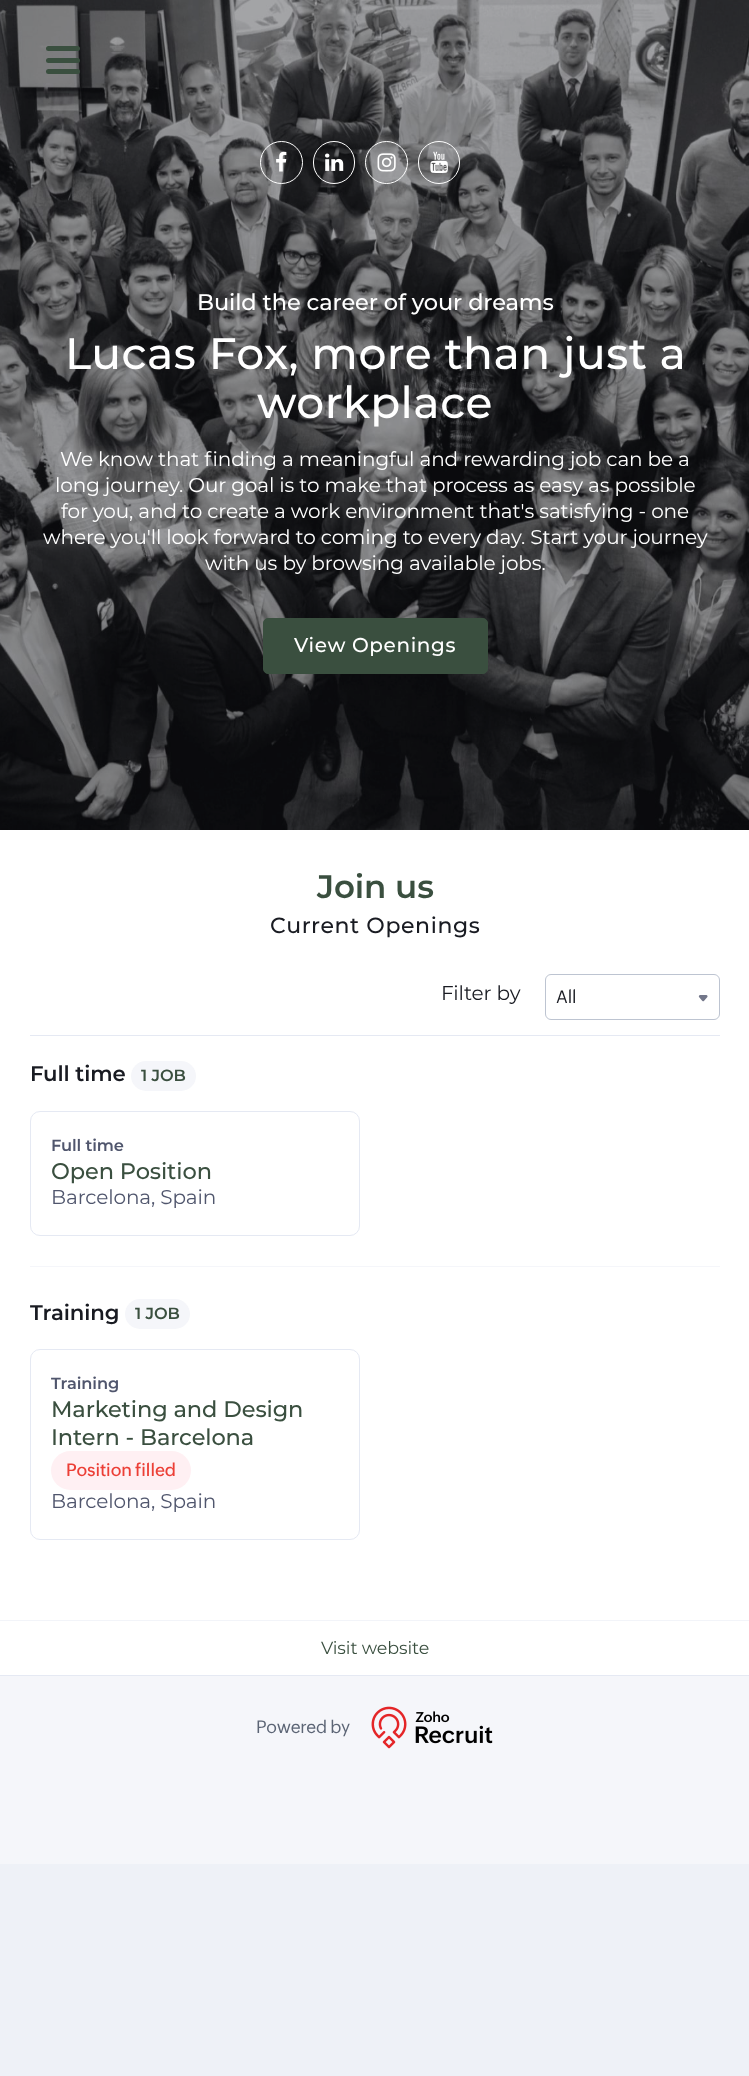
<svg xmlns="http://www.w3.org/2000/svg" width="749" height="2076">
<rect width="100%" height="100%" fill="#eef1f7"/>
<rect y="1676" width="749" height="188" fill="#f5f6fa"/>
<image x="0" y="0" width="749" height="830" href="media/1.png"/>
<rect x="46" y="46" width="34" height="5" rx="2.5" fill="#3a4f3f"/>
<rect x="46" y="58" width="34" height="5" rx="2.5" fill="#3a4f3f"/>
<rect x="46" y="69" width="34" height="5" rx="2.5" fill="#3a4f3f"/>
<circle cx="281.5" cy="162.5" r="21" fill="none" stroke="#fff"/>
<image x="276" y="151" width="11" height="21" href="media/2.png"/>
<rect x="313.5" y="141.5" width="41" height="42" rx="20.5" fill="none" stroke="#fff"/>
<image x="325" y="153" width="19" height="18" href="media/3.png"/>
<circle cx="386.5" cy="162.5" r="21" fill="none" stroke="#fff"/>
<image x="377" y="153" width="19" height="19" href="media/4.png"/>
<rect x="418.5" y="141.5" width="41" height="42" rx="20.5" fill="none" stroke="#fff"/>
<image x="430" y="151" width="18" height="22" href="media/5.png"/>
<text x="197" y="310" style="font-family:Montserrat;font-size:22.5px;font-weight:500;letter-spacing:-0.12px;fill:#fff">Build the career of your dreams</text>
<text x="65" y="369" style="font-family:Montserrat;font-size:44px;font-weight:500;letter-spacing:0.45px;fill:#fff">Lucas Fox, more than just a</text>
<text x="257" y="418" style="font-family:Montserrat;font-size:44px;font-weight:500;letter-spacing:0.45px;fill:#fff">workplace</text>
<text x="60" y="466" style="font-family:Montserrat;font-size:20px;letter-spacing:-0.12px;fill:#fff">We know that finding a meaningful and rewarding job can be a</text>
<text x="55" y="492" style="font-family:Montserrat;font-size:20px;letter-spacing:-0.12px;fill:#fff">long journey. Our goal is to make that process as easy as possible</text>
<text x="61" y="518" style="font-family:Montserrat;font-size:20px;letter-spacing:-0.12px;fill:#fff">for you, and to create a work environment that's satisfying - one</text>
<text x="43" y="544" style="font-family:Montserrat;font-size:20px;letter-spacing:-0.12px;fill:#fff">where you'll look forward to coming to every day. Start your journey</text>
<text x="205" y="570" style="font-family:Montserrat;font-size:20px;letter-spacing:-0.12px;fill:#fff">with us by browsing available jobs.</text>
<rect x="263.5" y="618.5" width="224" height="55" rx="4.5" fill="#3a4f3f" stroke="#3a4f3f"/>
<text x="294" y="652" style="font-family:Montserrat;font-size:20px;font-weight:500;letter-spacing:0.6px;fill:#fff">View Openings</text>
<rect y="830" width="749" height="790" fill="#fff"/>
<text x="317" y="898" style="font-family:Montserrat;font-size:32.5px;font-weight:600;letter-spacing:-0.12px;fill:#3a4f3f">Join us</text>
<text x="270" y="933" style="font-family:Montserrat;font-size:22px;font-weight:500;letter-spacing:0.6px;fill:#191b22">Current Openings</text>
<rect x="30" y="1035" width="690" height="1" fill="#e5e9f3"/>
<text x="441" y="1000" style="font-family:Montserrat;font-size:20px;letter-spacing:-0.12px;fill:#191b22">Filter by</text>
<rect x="545.5" y="974.5" width="174" height="45" rx="5.5" fill="none" stroke="#bdc4d1"/>
<text x="556" y="1003" style="font-family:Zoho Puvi;font-size:17.5px;letter-spacing:-0.12px;fill:#191b22">All</text>
<image x="698" y="995" width="10" height="7" href="media/6.png"/>
<rect x="30" y="1266" width="690" height="1" fill="#f5f6fa"/>
<text x="30" y="1081" style="font-family:Montserrat;font-size:21.25px;font-weight:600;letter-spacing:-0.12px;fill:#191b22">Full time</text>
<rect x="131" y="1061" width="65" height="30" rx="15" fill="#f5f6fa"/>
<text x="141" y="1081" style="font-family:Montserrat;font-size:16.25px;font-weight:600;letter-spacing:-0.12px;fill:#3a4f3f">1 JOB</text>
<rect x="30.5" y="1111.5" width="329" height="124" rx="9.5" fill="none" stroke="#e5e9f3"/>
<text x="51" y="1151" style="font-family:Montserrat;font-size:16.25px;font-weight:600;letter-spacing:-0.12px;fill:#50566d">Full time</text>
<text x="51" y="1179" style="font-family:Montserrat;font-size:22.5px;font-weight:500;letter-spacing:-0.12px;fill:#3a4f3f">Open Position</text>
<text x="51" y="1204" style="font-family:Montserrat;font-size:20px;letter-spacing:-0.12px;fill:#50566d">Barcelona, Spain</text>
<text x="30" y="1320" style="font-family:Montserrat;font-size:21.25px;font-weight:600;letter-spacing:-0.12px;fill:#191b22">Training</text>
<rect x="125" y="1299" width="65" height="30" rx="15" fill="#f5f6fa"/>
<text x="135" y="1319" style="font-family:Montserrat;font-size:16.25px;font-weight:600;letter-spacing:-0.12px;fill:#3a4f3f">1 JOB</text>
<rect x="30.5" y="1349.5" width="329" height="190" rx="9.5" fill="none" stroke="#e5e9f3"/>
<text x="51" y="1389" style="font-family:Montserrat;font-size:16.25px;font-weight:600;letter-spacing:-0.12px;fill:#50566d">Training</text>
<text x="51" y="1417" style="font-family:Montserrat;font-size:22.5px;font-weight:500;letter-spacing:-0.12px;fill:#3a4f3f">Marketing and Design</text>
<text x="51" y="1445" style="font-family:Montserrat;font-size:22.5px;font-weight:500;letter-spacing:-0.12px;fill:#3a4f3f">Intern - Barcelona</text>
<rect x="51" y="1451" width="140" height="39" rx="19.5" fill="#fff0f3"/>
<text x="66" y="1476" style="font-family:Zoho Puvi;font-size:17.5px;font-weight:500;letter-spacing:-0.12px;fill:#ec3f36">Position filled</text>
<text x="51" y="1508" style="font-family:Montserrat;font-size:20px;letter-spacing:-0.12px;fill:#50566d">Barcelona, Spain</text>
<rect y="1620" width="749" height="1" fill="#f2f4f9"/>
<rect y="1621" width="749" height="54" fill="#fff"/>
<rect y="1675" width="749" height="1" fill="#e5e9f3"/>
<text x="321" y="1654" style="font-family:Montserrat;font-size:17.5px;letter-spacing:-0.12px;fill:#3a4f3f">Visit website</text>
<text x="256" y="1733" style="font-family:Zoho Puvi;font-size:17.5px;letter-spacing:-0.12px;fill:#5c6575">Powered by</text>
<image x="371" y="1706" width="122" height="43" href="media/7.png"/>
</svg>
